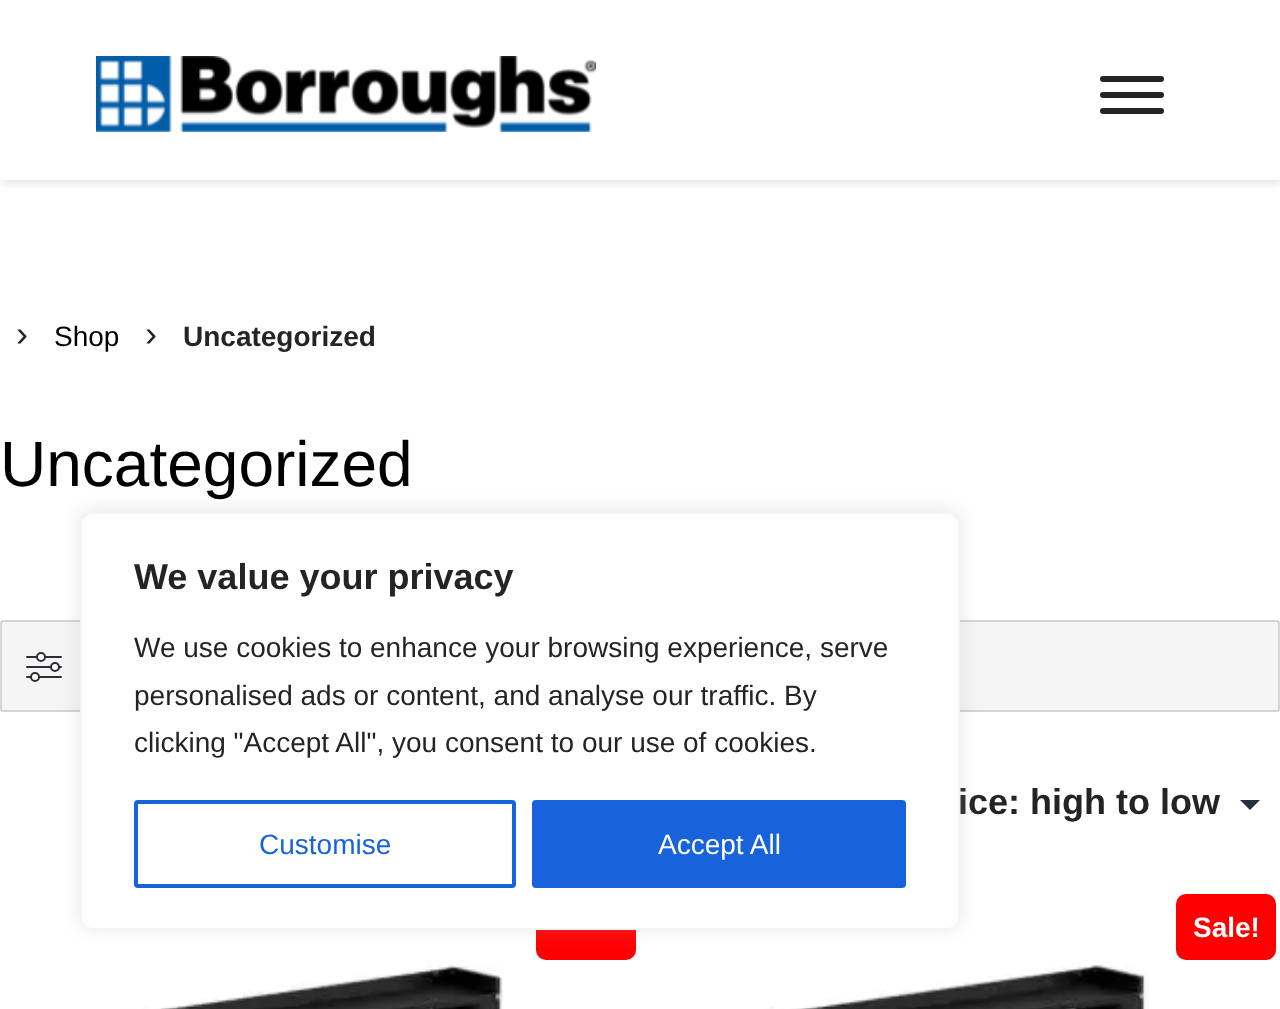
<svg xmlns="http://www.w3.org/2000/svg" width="1280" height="1009">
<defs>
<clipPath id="clip1"><rect x="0" y="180" width="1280" height="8"/></clipPath>
</defs>
<rect width="100%" height="100%" fill="#fff"/>
<g clip-path="url(#clip1)">
<rect x="2" y="4" width="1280" height="180" fill="#0000001a" filter="blur(5px)"/>
</g>
<image x="96" y="56" width="500" height="76" href="media/1.png"/>
<rect x="1100" y="76" width="64" height="6" rx="3" fill="#242424"/>
<rect x="1100" y="92" width="64" height="6" rx="3" fill="#242424"/>
<rect x="1100" y="108" width="64" height="6" rx="3" fill="#242424"/>
<text x="16" y="346" style="font-family:Liberation Sans;font-size:36px;fill:#242424">›</text>
<text x="54" y="346" style="font-family:Liberation Sans;font-size:28px;fill:#000">Shop</text>
<text x="145" y="346" style="font-family:Liberation Sans;font-size:36px;fill:#242424">›</text>
<text x="183" y="346" style="font-family:Liberation Sans;font-size:28px;font-weight:bold;fill:#242424">Uncategorized</text>
<text x="0" y="486" style="font-family:Liberation Sans;font-size:64px;fill:#000">Uncategorized</text>
<rect y="620" width="1280" height="92" rx="4" fill="#f5f5f5"/>
<rect x="1" y="621" width="1278" height="90" rx="3" fill="none" stroke="#2c2d3329" stroke-width="2"/>
<rect x="26" y="656" width="36" height="2" rx="1" fill="#2c2d33"/>
<circle cx="41" cy="657" r="4" fill="#fff" stroke="#2c2d33" stroke-width="2"/>
<rect x="26" y="666" width="36" height="2" rx="1" fill="#2c2d33"/>
<circle cx="55" cy="667" r="4" fill="#fff" stroke="#2c2d33" stroke-width="2"/>
<rect x="26" y="676" width="36" height="2" rx="1" fill="#2c2d33"/>
<circle cx="35" cy="677" r="4" fill="#fff" stroke="#2c2d33" stroke-width="2"/>
<path d="M1240 800h20l-10 10z" fill="#28303d"/>
<text x="958" y="814" style="font-family:Liberation Sans;font-size:36px;font-weight:bold;fill:#242424">ice: high to low</text>
<image x="14" y="884" width="612" height="125" href="media/2.png"/>
<rect x="536" y="894" width="100" height="66" rx="10" fill="#f00"/>
<image x="654" y="884" width="612" height="125" href="media/3.png"/>
<rect x="1176" y="894" width="100" height="66" rx="10" fill="#f00"/>
<text x="1193" y="937" style="font-family:Liberation Sans;font-size:28px;font-weight:bold;fill:#fff">Sale!</text>
<rect x="80" y="510" width="880" height="418" rx="12" fill="#acabab4d" filter="blur(10px)"/>
<rect x="81" y="513" width="878" height="416" rx="11" fill="#fff" stroke="#f4f4f4" stroke-width="2"/>
<text x="134" y="589" style="font-family:Liberation Sans;font-size:36px;font-weight:bold;fill:#242424">We value your privacy</text>
<text x="134" y="657" style="font-family:Liberation Sans;font-size:28px;fill:#242424">We use cookies to enhance your browsing experience, serve</text>
<text x="134" y="705" style="font-family:Liberation Sans;font-size:28px;fill:#242424">personalised ads or content, and analyse our traffic. By</text>
<text x="134" y="752" style="font-family:Liberation Sans;font-size:28px;fill:#242424">clicking "Accept All", you consent to our use of cookies.</text>
<rect x="136" y="802" width="378" height="84" rx="2" fill="none" stroke="#1863dc" stroke-width="4"/>
<text x="259" y="854" style="font-family:Liberation Sans;font-size:28px;fill:#1863dc">Customise</text>
<rect x="534" y="802" width="370" height="84" rx="2" fill="#1863dc" stroke="#1863dc" stroke-width="4"/>
<text x="658" y="854" style="font-family:Liberation Sans;font-size:28px;fill:#fff">Accept All</text>
</svg>
